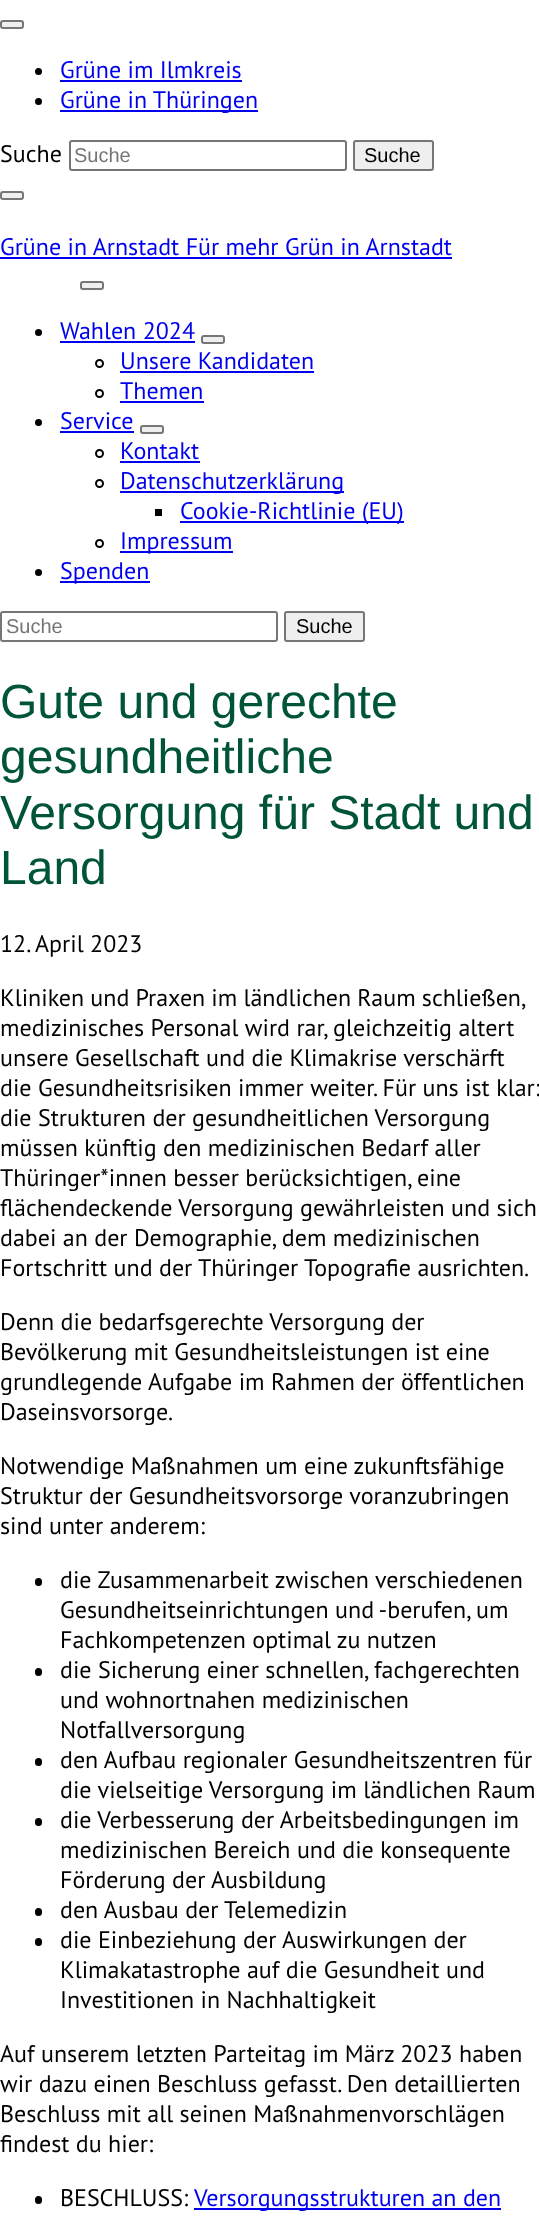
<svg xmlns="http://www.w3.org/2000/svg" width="539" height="2222">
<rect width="100%" height="100%" fill="#fff"/>
<rect x="1" y="21" width="22" height="7" rx="2" fill="#efefef" stroke="#767676" stroke-width="2"/>
<circle cx="38.5" cy="71.5" r="3.5" fill="#000"/>
<text x="60" y="78" style="font-family:PT Sans;font-size:24px;fill:#00e">Grüne im Ilmkreis</text>
<rect x="60" y="80" width="182" height="2" fill="#00e"/>
<circle cx="38.5" cy="101.5" r="3.5" fill="#000"/>
<rect x="60" y="110" width="198" height="2" fill="#00e"/>
<text x="60" y="108" style="font-family:PT Sans;font-size:24px;fill:#00e">Grüne in Thüringen</text>
<text x="0" y="162" style="font-family:PT Sans;font-size:24px;fill:#000">Suche</text>
<rect x="70" y="141" width="276" height="29" rx="2" fill="none" stroke="#767676" stroke-width="2"/>
<text x="74" y="162" style="font-family:Liberation Sans;font-size:20px;fill:#757575">Suche</text>
<rect x="354" y="141" width="79" height="29" rx="2" fill="#efefef" stroke="#767676" stroke-width="2"/>
<text x="364" y="162" style="font-family:Liberation Sans;font-size:20px;fill:#000">Suche</text>
<rect x="1" y="192" width="22" height="7" rx="2" fill="#efefef" stroke="#767676" stroke-width="2"/>
<text x="0" y="255" style="font-family:PT Sans;font-size:24px;fill:#00e">Grüne in Arnstadt Für mehr Grün in Arnstadt</text>
<rect y="257" width="452" height="2" fill="#00e"/>
<rect x="81" y="282" width="22" height="7" rx="2" fill="#efefef" stroke="#767676" stroke-width="2"/>
<circle cx="38.5" cy="332.5" r="3.5" fill="#000"/>
<text x="60" y="339" style="font-family:PT Sans;font-size:24px;fill:#00e">Wahlen 2024</text>
<rect x="60" y="341" width="135" height="2" fill="#00e"/>
<rect x="202" y="336" width="22" height="7" rx="2" fill="#efefef" stroke="#767676" stroke-width="2"/>
<circle cx="99.5" cy="363.5" r="3.5" fill="none" stroke="#000" stroke-width="2"/>
<text x="120" y="369" style="font-family:PT Sans;font-size:24px;fill:#00e">Unsere Kandidaten</text>
<rect x="120" y="371" width="194" height="2" fill="#00e"/>
<circle cx="99.5" cy="393.5" r="3.5" fill="none" stroke="#000" stroke-width="2"/>
<text x="120" y="399" style="font-family:PT Sans;font-size:24px;fill:#00e">Themen</text>
<rect x="120" y="401" width="84" height="2" fill="#00e"/>
<circle cx="38.5" cy="422.5" r="3.5" fill="#000"/>
<text x="60" y="429" style="font-family:PT Sans;font-size:24px;fill:#00e">Service</text>
<rect x="60" y="431" width="74" height="2" fill="#00e"/>
<rect x="141" y="426" width="22" height="7" rx="2" fill="#efefef" stroke="#767676" stroke-width="2"/>
<circle cx="99.5" cy="453.5" r="3.5" fill="none" stroke="#000" stroke-width="2"/>
<text x="120" y="459" style="font-family:PT Sans;font-size:24px;fill:#00e">Kontakt</text>
<rect x="120" y="461" width="80" height="2" fill="#00e"/>
<circle cx="99.5" cy="483.5" r="3.5" fill="none" stroke="#000" stroke-width="2"/>
<rect x="120" y="491" width="224" height="2" fill="#00e"/>
<text x="120" y="489" style="font-family:PT Sans;font-size:24px;fill:#00e">Datenschutzerklärung</text>
<rect x="155" y="509" width="7" height="7" fill="#000"/>
<rect x="180" y="521" width="224" height="2" fill="#00e"/>
<text x="180" y="519" style="font-family:PT Sans;font-size:24px;fill:#00e">Cookie-Richtlinie (EU)</text>
<circle cx="99.5" cy="543.5" r="3.5" fill="none" stroke="#000" stroke-width="2"/>
<rect x="120" y="551" width="113" height="2" fill="#00e"/>
<text x="120" y="549" style="font-family:PT Sans;font-size:24px;fill:#00e">Impressum</text>
<circle cx="38.5" cy="572.5" r="3.5" fill="#000"/>
<rect x="60" y="581" width="90" height="2" fill="#00e"/>
<text x="60" y="579" style="font-family:PT Sans;font-size:24px;fill:#00e">Spenden</text>
<rect x="1" y="612" width="276" height="29" rx="2" fill="none" stroke="#767676" stroke-width="2"/>
<text x="6" y="633" style="font-family:Liberation Sans;font-size:20px;fill:#757575">Suche</text>
<rect x="285" y="612" width="79" height="29" rx="2" fill="#efefef" stroke="#767676" stroke-width="2"/>
<text x="296" y="633" style="font-family:Liberation Sans;font-size:20px;fill:#000">Suche</text>
<text x="0" y="718" style="font-family:Liberation Sans;font-size:48px;fill:#005437">Gute und gerechte</text>
<text x="0" y="773" style="font-family:Liberation Sans;font-size:48px;fill:#005437">gesundheitliche</text>
<text x="0" y="829" style="font-family:Liberation Sans;font-size:48px;fill:#005437">Versorgung für Stadt und</text>
<text x="0" y="884" style="font-family:Liberation Sans;font-size:48px;fill:#005437">Land</text>
<text x="0" y="952" style="font-family:PT Sans;font-size:24px;fill:#000">12. April 2023</text>
<text x="0" y="1006" word-spacing="-0.25" style="font-family:PT Sans;font-size:24px;fill:#000">Kliniken und Praxen im ländlichen Raum schließen,</text>
<text x="0" y="1036" style="font-family:PT Sans;font-size:24px;fill:#000">medizinisches Personal wird rar, gleichzeitig altert</text>
<text x="0" y="1066" style="font-family:PT Sans;font-size:24px;fill:#000">unsere Gesellschaft und die Klimakrise verschärft</text>
<text x="0" y="1096" style="font-family:PT Sans;font-size:24px;fill:#000">die Gesundheitsrisiken immer weiter. Für uns ist klar:</text>
<text x="0" y="1126" style="font-family:PT Sans;font-size:24px;fill:#000">die Strukturen der gesundheitlichen Versorgung</text>
<text x="0" y="1156" style="font-family:PT Sans;font-size:24px;fill:#000">müssen künftig den medizinischen Bedarf aller</text>
<text x="0" y="1186" style="font-family:PT Sans;font-size:24px;fill:#000">Thüringer*innen besser berücksichtigen, eine</text>
<text x="0" y="1216" style="font-family:PT Sans;font-size:24px;fill:#000">flächendeckende Versorgung gewährleisten und sich</text>
<text x="0" y="1246" style="font-family:PT Sans;font-size:24px;fill:#000">dabei an der Demographie, dem medizinischen</text>
<text x="0" y="1276" style="font-family:PT Sans;font-size:24px;fill:#000">Fortschritt und der Thüringer Topografie ausrichten.</text>
<text x="0" y="1330" style="font-family:PT Sans;font-size:24px;fill:#000">Denn die bedarfsgerechte Versorgung der</text>
<text x="0" y="1360" style="font-family:PT Sans;font-size:24px;fill:#000">Bevölkerung mit Gesundheitsleistungen ist eine</text>
<text x="0" y="1390" style="font-family:PT Sans;font-size:24px;fill:#000">grundlegende Aufgabe im Rahmen der öffentlichen</text>
<text x="0" y="1420" style="font-family:PT Sans;font-size:24px;fill:#000">Daseinsvorsorge.</text>
<text x="0" y="1474" style="font-family:PT Sans;font-size:24px;fill:#000">Notwendige Maßnahmen um eine zukunftsfähige</text>
<text x="0" y="1504" style="font-family:PT Sans;font-size:24px;fill:#000">Struktur der Gesundheitsvorsorge voranzubringen</text>
<text x="0" y="1534" style="font-family:PT Sans;font-size:24px;fill:#000">sind unter anderem:</text>
<rect x="35" y="1578" width="7" height="8" rx="3.5" fill="#000"/>
<text x="60" y="1588" style="font-family:PT Sans;font-size:24px;fill:#000">die Zusammenarbeit zwischen verschiedenen</text>
<text x="60" y="1618" style="font-family:PT Sans;font-size:24px;fill:#000">Gesundheitseinrichtungen und -berufen, um</text>
<text x="60" y="1648" style="font-family:PT Sans;font-size:24px;fill:#000">Fachkompetenzen optimal zu nutzen</text>
<rect x="35" y="1668" width="7" height="8" rx="3.5" fill="#000"/>
<text x="60" y="1678" style="font-family:PT Sans;font-size:24px;fill:#000">die Sicherung einer schnellen, fachgerechten</text>
<text x="60" y="1708" style="font-family:PT Sans;font-size:24px;fill:#000">und wohnortnahen medizinischen</text>
<text x="60" y="1738" style="font-family:PT Sans;font-size:24px;fill:#000">Notfallversorgung</text>
<rect x="35" y="1758" width="7" height="8" rx="3.5" fill="#000"/>
<text x="60" y="1768" style="font-family:PT Sans;font-size:24px;fill:#000">den Aufbau regionaler Gesundheitszentren für</text>
<text x="60" y="1798" style="font-family:PT Sans;font-size:24px;fill:#000">die vielseitige Versorgung im ländlichen Raum</text>
<rect x="35" y="1818" width="7" height="8" rx="3.5" fill="#000"/>
<text x="60" y="1828" style="font-family:PT Sans;font-size:24px;fill:#000">die Verbesserung der Arbeitsbedingungen im</text>
<text x="60" y="1858" style="font-family:PT Sans;font-size:24px;fill:#000">medizinischen Bereich und die konsequente</text>
<text x="60" y="1888" style="font-family:PT Sans;font-size:24px;fill:#000">Förderung der Ausbildung</text>
<rect x="35" y="1908" width="7" height="8" rx="3.5" fill="#000"/>
<text x="60" y="1918" style="font-family:PT Sans;font-size:24px;fill:#000">den Ausbau der Telemedizin</text>
<rect x="35" y="1938" width="7" height="8" rx="3.5" fill="#000"/>
<text x="60" y="1948" style="font-family:PT Sans;font-size:24px;fill:#000">die Einbeziehung der Auswirkungen der</text>
<text x="60" y="1978" style="font-family:PT Sans;font-size:24px;fill:#000">Klimakatastrophe auf die Gesundheit und</text>
<text x="60" y="2008" style="font-family:PT Sans;font-size:24px;fill:#000">Investitionen in Nachhaltigkeit</text>
<text x="0" y="2062" style="font-family:PT Sans;font-size:24px;fill:#000">Auf unserem letzten Parteitag im März 2023 haben</text>
<text x="0" y="2092" style="font-family:PT Sans;font-size:24px;fill:#000">wir dazu einen Beschluss gefasst. Den detaillierten</text>
<text x="0" y="2122" style="font-family:PT Sans;font-size:24px;fill:#000">Beschluss mit all seinen Maßnahmenvorschlägen</text>
<text x="0" y="2152" style="font-family:PT Sans;font-size:24px;fill:#000">findest du hier:</text>
<rect x="35" y="2196" width="7" height="8" rx="3.5" fill="#000"/>
<text x="60" y="2206" style="font-family:PT Sans;font-size:24px;fill:#000">BESCHLUSS:</text>
<rect x="194" y="2208" width="307" height="2" fill="#00e"/>
<text x="194" y="2206" style="font-family:PT Sans;font-size:24px;fill:#00e">Versorgungsstrukturen an den</text>
</svg>
